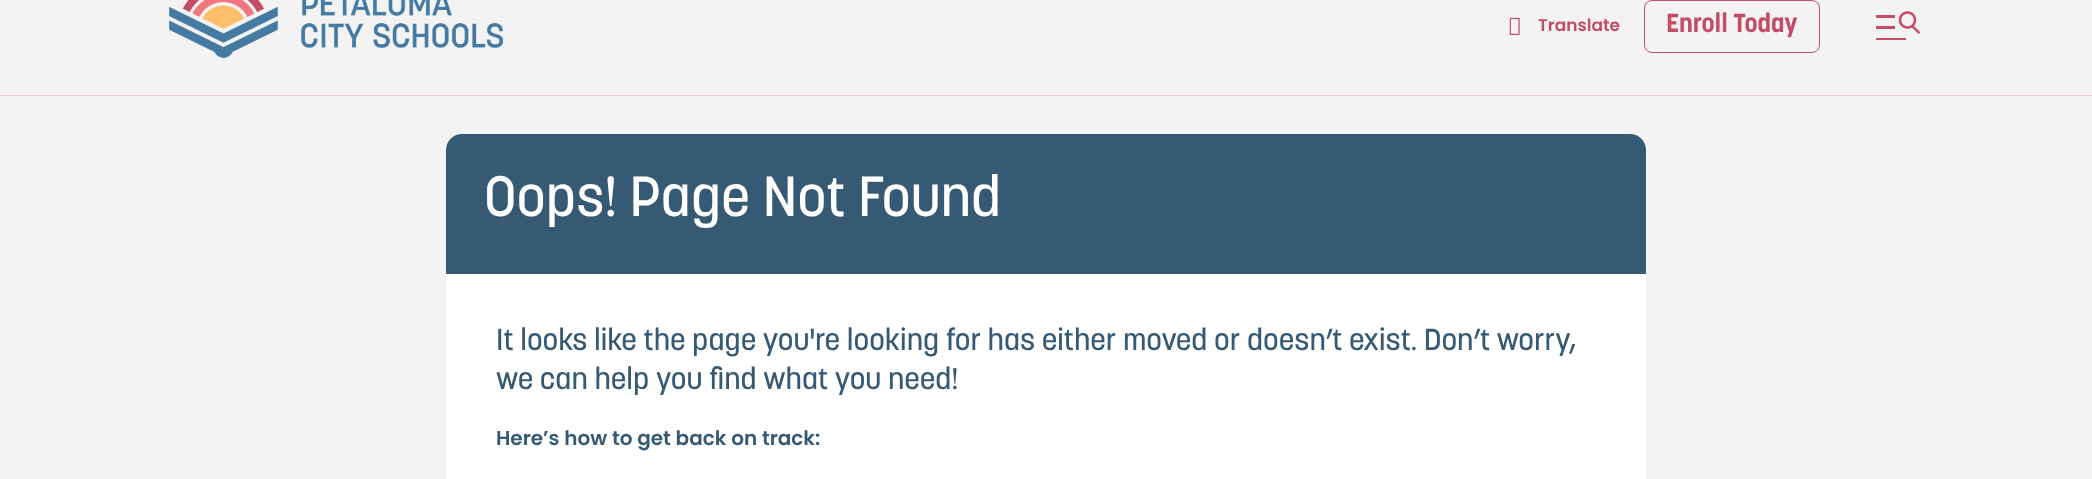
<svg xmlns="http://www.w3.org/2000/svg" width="2092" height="479">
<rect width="100%" height="100%" fill="#f3f3f3"/>
<rect y="95" width="2092" height="1" fill="#e8ced0"/>
<image x="169" y="0" width="334" height="58" href="media/1.png"/>
<image x="1509" y="17" width="11" height="18" href="media/2.png"/>
<text x="1538" y="31" style="font-family:Poppins;font-size:17px;font-weight:600;fill:#c34c67">Translate</text>
<rect x="1644.5" y="0.5" width="175" height="52" rx="7.5" fill="none" stroke="#c34c67"/>
<text x="1666" y="32" style="font-family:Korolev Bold;font-size:26px;font-weight:bold;fill:#c34c67">Enroll Today</text>
<image x="1876" y="11" width="45" height="29" href="media/3.png"/>
<rect x="446" y="134" width="1200" height="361" rx="16" fill="#fff"/>
<path d="M462 134h1168c9 0 16 7 16 16v124h-1200v-124c0-9 7-16 16-16z" fill="#365a73"/>
<text x="484" y="216" style="font-family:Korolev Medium;font-size:56px;font-weight:500;fill:#fff">Oops! Page Not Found</text>
<text x="496" y="350" style="font-family:Korolev Medium;font-size:30px;font-weight:500;fill:#365a73">It looks like the page you're looking for has either moved or doesn’t exist. Don’t worry,</text>
<text x="496" y="389" style="font-family:Korolev Medium;font-size:30px;font-weight:500;fill:#365a73">we can help you find what you need!</text>
<text x="496" y="445" style="font-family:Poppins;font-size:20px;font-weight:600;fill:#365a73">Here’s how to get back on track:</text>
</svg>
